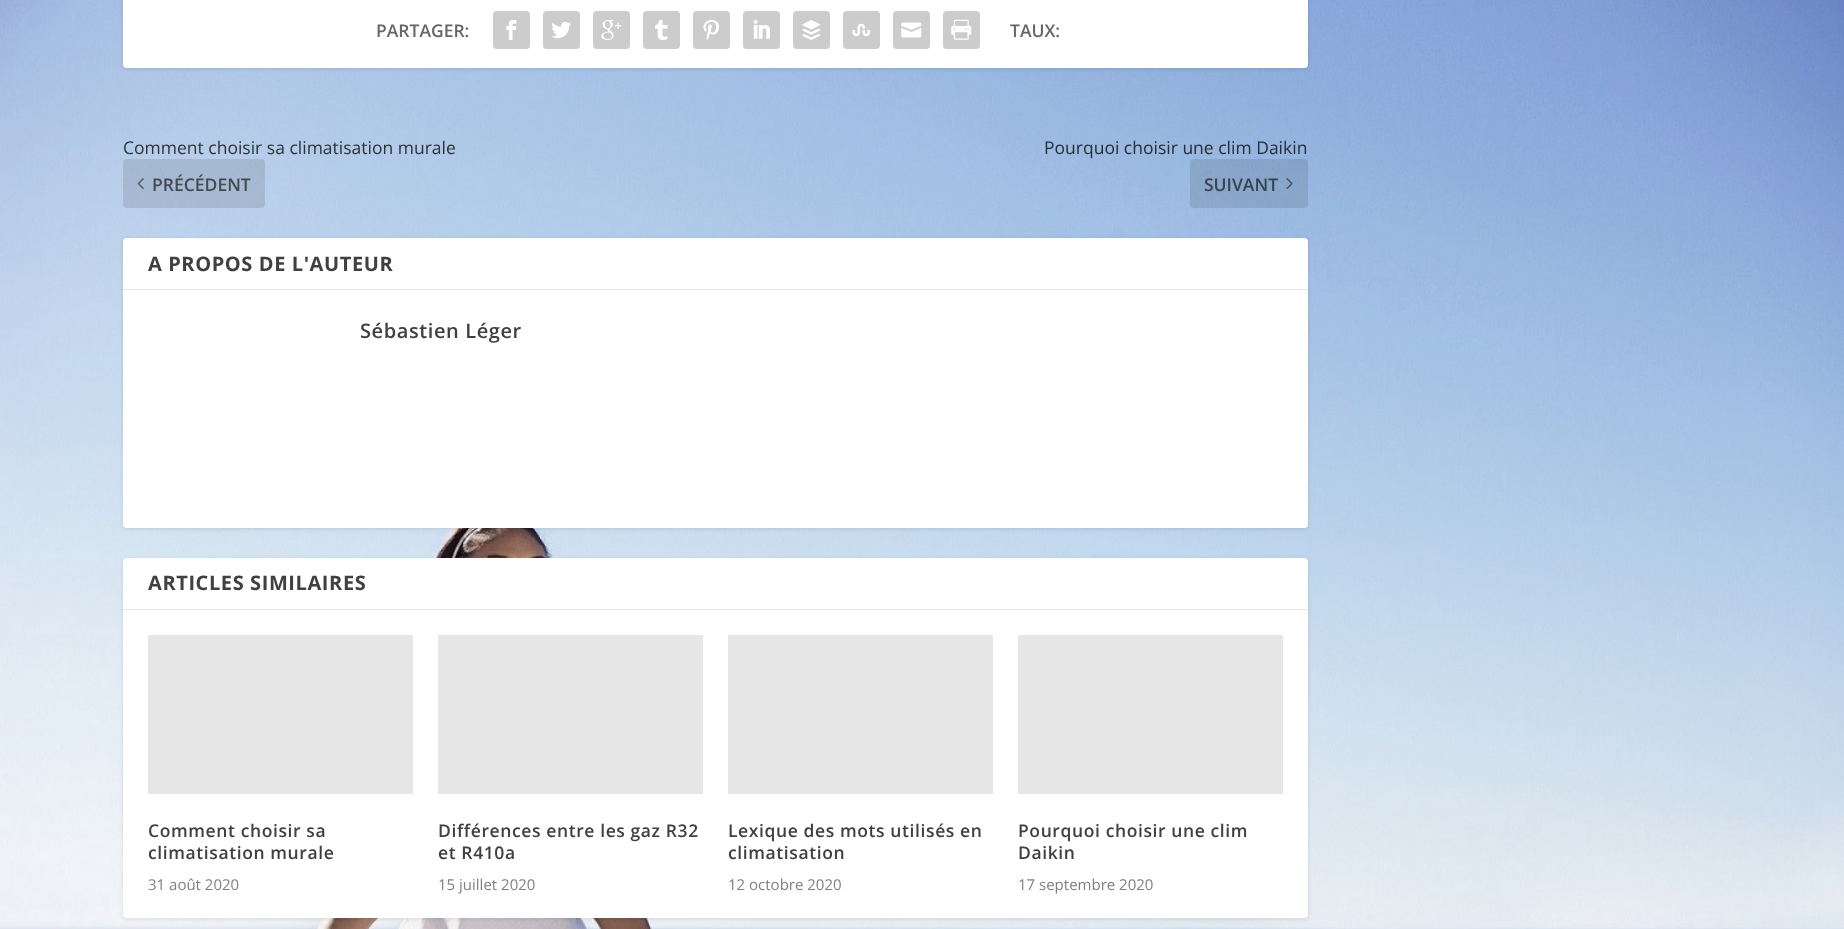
<svg xmlns="http://www.w3.org/2000/svg" width="1844" height="929">
<rect width="100%" height="100%" fill="#fff"/>
<image x="0" y="0" width="1844" height="929" href="media/1.png"/>
<rect x="123" y="-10" width="1185" height="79" rx="4" fill="#0000001a" filter="blur(2px)"/>
<rect x="123" y="-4" width="1185" height="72" rx="4" fill="#fff"/>
<text x="376" y="37" style="font-family:Open Sans;font-size:17.5px;font-weight:600;fill:#666">PARTAGER:</text>
<rect x="493" y="11" width="37" height="38" rx="4" fill="#ccc"/>
<image x="506" y="20" width="11" height="20" href="media/2.png"/>
<rect x="543" y="11" width="37" height="38" rx="4" fill="#ccc"/>
<image x="551" y="21" width="20" height="18" href="media/3.png"/>
<rect x="593" y="11" width="37" height="38" rx="4" fill="#ccc"/>
<image x="601" y="20" width="21" height="20" href="media/4.png"/>
<rect x="643" y="11" width="37" height="38" rx="4" fill="#ccc"/>
<image x="655" y="20" width="13" height="20" href="media/5.png"/>
<rect x="693" y="11" width="37" height="38" rx="4" fill="#ccc"/>
<image x="703" y="20" width="16" height="20" href="media/6.png"/>
<rect x="743" y="11" width="37" height="38" rx="4" fill="#ccc"/>
<image x="753" y="20" width="17" height="19" href="media/7.png"/>
<rect x="793" y="11" width="37" height="38" rx="4" fill="#ccc"/>
<image x="802" y="20" width="19" height="20" href="media/8.png"/>
<rect x="843" y="11" width="37" height="38" rx="4" fill="#ccc"/>
<image x="852" y="23" width="18" height="14" href="media/9.png"/>
<rect x="893" y="11" width="37" height="38" rx="4" fill="#ccc"/>
<image x="901" y="22" width="21" height="16" href="media/10.png"/>
<rect x="943" y="11" width="37" height="38" rx="4" fill="#ccc"/>
<image x="951" y="19" width="21" height="21" href="media/11.png"/>
<text x="1010" y="37" style="font-family:Open Sans;font-size:17.5px;font-weight:600;fill:#666">TAUX:</text>
<text x="123" y="154" style="font-family:Open Sans;font-size:17.5px;fill:#2d333a">Comment choisir sa climatisation murale</text>
<rect x="123" y="159" width="142" height="49" rx="4" fill="#0000001a"/>
<image x="137" y="178" width="7" height="11" href="media/12.png"/>
<text x="152" y="191" style="font-family:Open Sans;font-size:17.5px;font-weight:600;fill:#434a54">PRÉCÉDENT</text>
<text x="1044" y="154" style="font-family:Open Sans;font-size:17.5px;fill:#262e38">Pourquoi choisir une clim Daikin</text>
<rect x="1190" y="159" width="118" height="49" rx="4" fill="#0000001a"/>
<text x="1204" y="191" style="font-family:Open Sans;font-size:17.5px;font-weight:600;fill:#374351">SUIVANT</text>
<image x="1286" y="178" width="7" height="11" href="media/13.png"/>
<rect x="123" y="239" width="1185" height="290" rx="4" fill="#0000001a" filter="blur(2px)"/>
<rect x="123" y="238" width="1185" height="290" rx="4" fill="#fff"/>
<rect x="123" y="289" width="1185" height="1" fill="#e6e6e6"/>
<text x="148" y="271" style="font-family:Open Sans;font-size:20px;font-weight:bold;letter-spacing:0.6px;fill:#404040">A PROPOS DE L'AUTEUR</text>
<text x="360" y="338" style="font-family:Open Sans;font-size:20px;font-weight:600;letter-spacing:0.6px;fill:#404040">Sébastien Léger</text>
<rect x="123" y="559" width="1185" height="360" rx="4" fill="#0000001a" filter="blur(2px)"/>
<rect x="123" y="558" width="1185" height="360" rx="4" fill="#fff"/>
<rect x="123" y="609" width="1185" height="1" fill="#e6e6e6"/>
<text x="148" y="590" style="font-family:Open Sans;font-size:20px;font-weight:bold;letter-spacing:0.6px;fill:#404040">ARTICLES SIMILAIRES</text>
<rect x="148" y="635" width="265" height="159" fill="#e6e6e6"/>
<text x="148" y="837" style="font-family:Open Sans;font-size:17.5px;font-weight:600;letter-spacing:0.6px;fill:#404040">Comment choisir sa</text>
<text x="148" y="859" style="font-family:Open Sans;font-size:17.5px;font-weight:600;letter-spacing:0.6px;fill:#404040">climatisation murale</text>
<text x="148" y="890" style="font-family:Open Sans;font-size:15px;fill:#808080">31 août 2020</text>
<rect x="438" y="635" width="265" height="159" fill="#e6e6e6"/>
<text x="438" y="837" style="font-family:Open Sans;font-size:17.5px;font-weight:600;letter-spacing:0.6px;fill:#404040">Différences entre les gaz R32</text>
<text x="438" y="859" style="font-family:Open Sans;font-size:17.5px;font-weight:600;letter-spacing:0.6px;fill:#404040">et R410a</text>
<text x="438" y="890" style="font-family:Open Sans;font-size:15px;fill:#808080">15 juillet 2020</text>
<rect x="728" y="635" width="265" height="159" fill="#e6e6e6"/>
<text x="728" y="837" style="font-family:Open Sans;font-size:17.5px;font-weight:600;letter-spacing:0.6px;fill:#404040">Lexique des mots utilisés en</text>
<text x="728" y="859" style="font-family:Open Sans;font-size:17.5px;font-weight:600;letter-spacing:0.6px;fill:#404040">climatisation</text>
<text x="728" y="890" style="font-family:Open Sans;font-size:15px;fill:#808080">12 octobre 2020</text>
<rect x="1018" y="635" width="265" height="159" fill="#e6e6e6"/>
<text x="1018" y="837" style="font-family:Open Sans;font-size:17.5px;font-weight:600;letter-spacing:0.6px;fill:#404040">Pourquoi choisir une clim</text>
<text x="1018" y="859" style="font-family:Open Sans;font-size:17.5px;font-weight:600;letter-spacing:0.6px;fill:#404040">Daikin</text>
<text x="1018" y="890" style="font-family:Open Sans;font-size:15px;fill:#808080">17 septembre 2020</text>
</svg>
